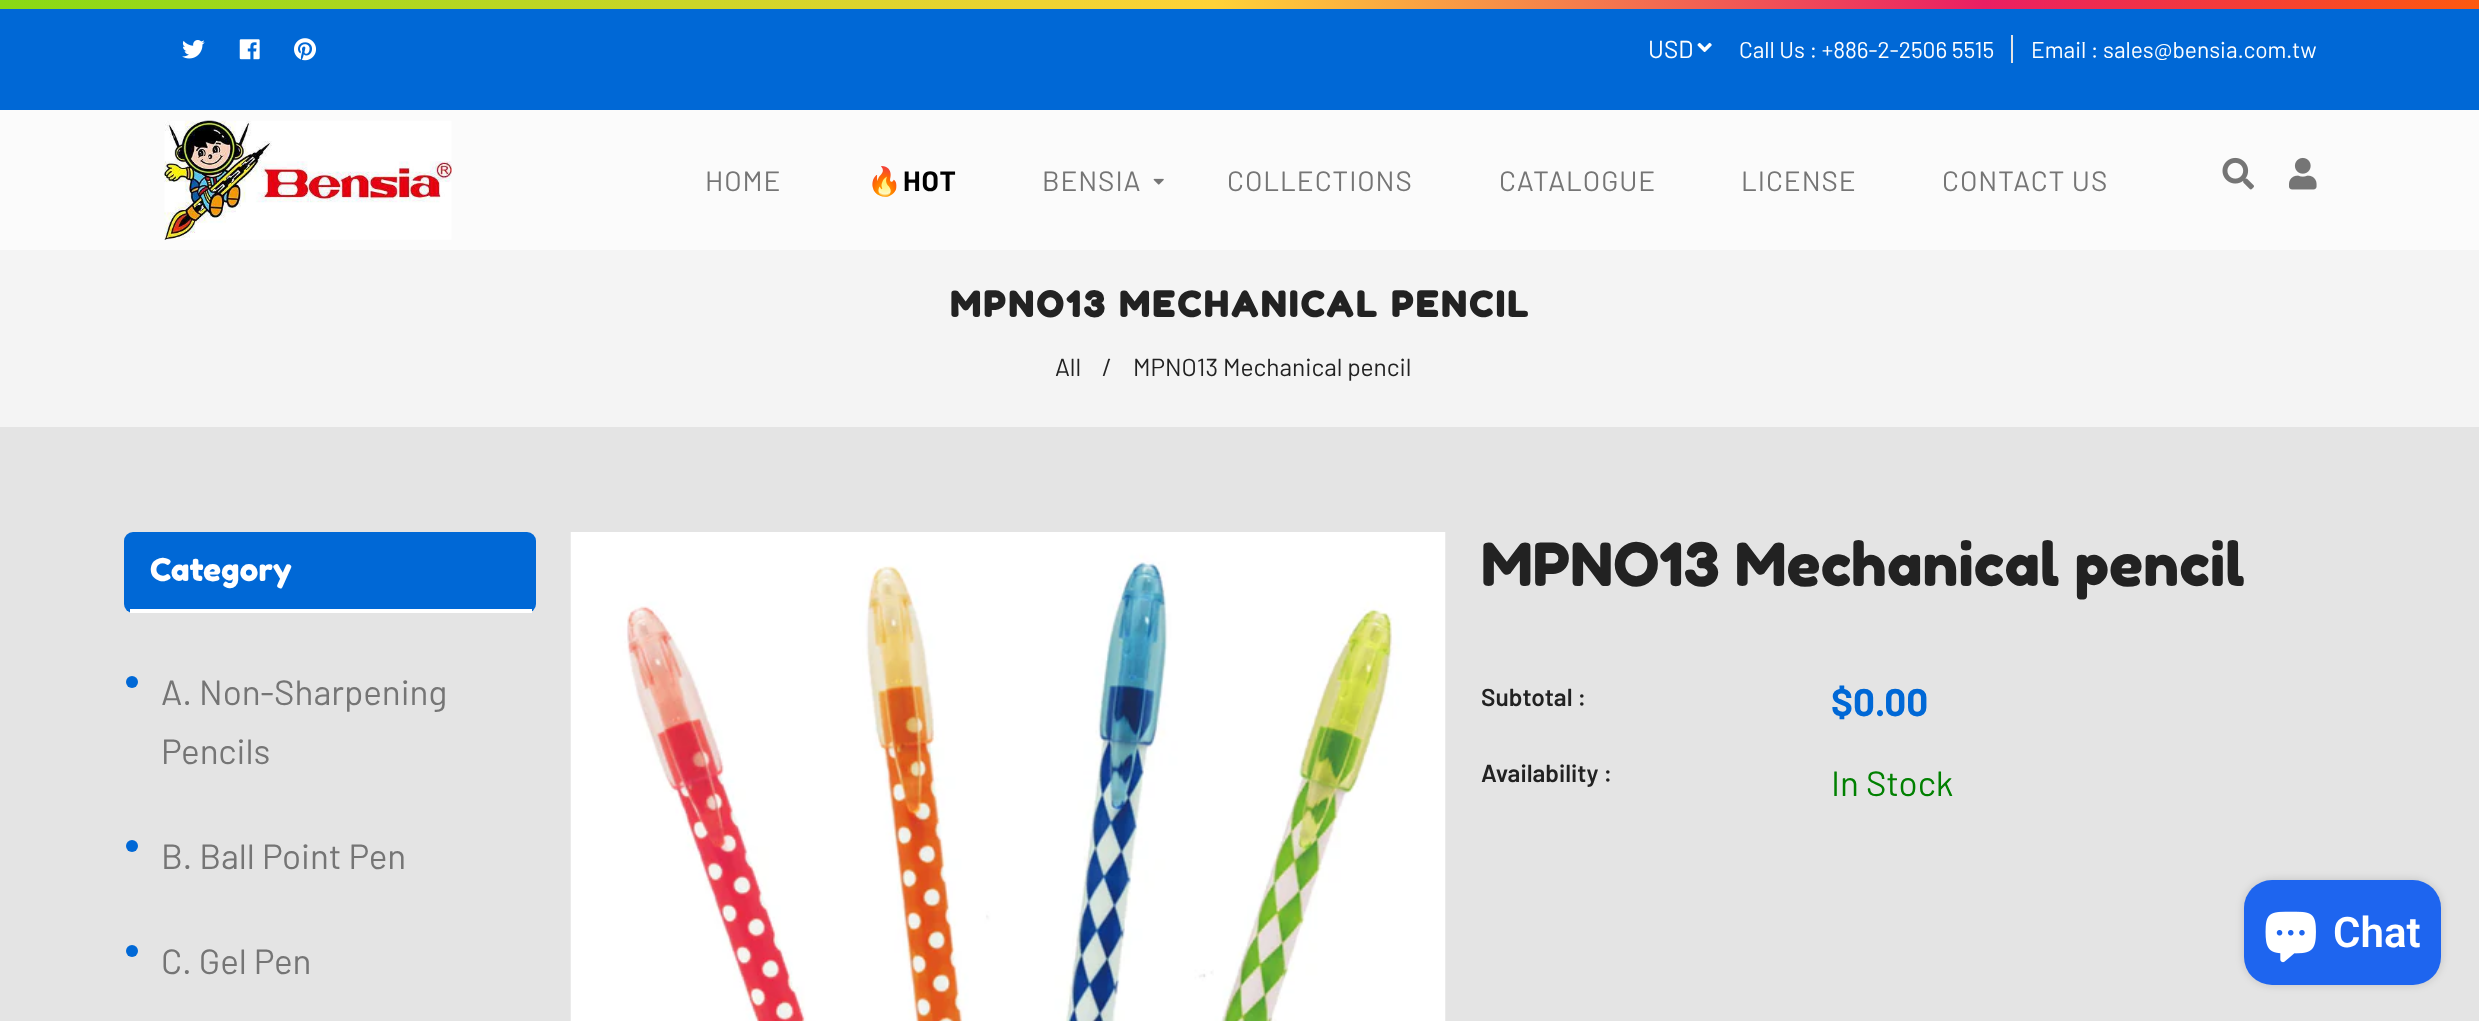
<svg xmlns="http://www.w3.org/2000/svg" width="2479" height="1021">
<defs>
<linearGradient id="g1" gradientUnits="userSpaceOnUse" x1="0" y1="4.4" x2="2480" y2="4.4"><stop offset="0" stop-color="#89d914"/><stop offset="0.49" stop-color="#ffd237"/><stop offset="0.8" stop-color="#ea1e63"/><stop offset="1" stop-color="#fd5a0f"/></linearGradient>
</defs>
<rect width="100%" height="100%" fill="#e4e4e4"/>
<rect width="2479" height="9" fill="url(#g1)"/>
<rect y="9" width="2479" height="101" fill="#0068d6"/>
<image x="182" y="40" width="23" height="19" href="media/1.png"/>
<image x="239" y="39" width="21" height="21" href="media/2.png"/>
<image x="294" y="38" width="22" height="23" href="media/3.png"/>
<text x="1648" y="58" style="font-family:Barlow;font-size:24.5px;fill:#fff">USD</text>
<image x="1697" y="42" width="15" height="10" href="media/4.png"/>
<text x="1739" y="58" style="font-family:Barlow;font-size:22.75px;fill:#fff">Call Us : +886-2-2506 5515</text>
<rect x="2011" y="35" width="2" height="28" fill="#e4e4e4"/>
<text x="2031" y="58" style="font-family:Barlow;font-size:22.75px;fill:#fff">Email : sales@bensia.com.tw</text>
<rect y="110" width="2479" height="140" fill="#fbfbfb"/>
<image x="164" y="120" width="288" height="120" href="media/5.png"/>
<text x="705" y="191" style="font-family:Barlow;font-size:28px;letter-spacing:0.9px;fill:#757575">HOME</text>
<text x="867" y="191" style="font-family:Noto Color Emoji;font-size:28px;font-weight:bold;letter-spacing:0.9px;fill:#000">🔥</text>
<text x="903" y="191" style="font-family:Barlow;font-size:28px;font-weight:bold;letter-spacing:0.9px;fill:#000">HOT</text>
<text x="1042" y="191" style="font-family:Barlow;font-size:28px;letter-spacing:0.9px;fill:#757575">BENSIA</text>
<image x="1153" y="178" width="11" height="7" href="media/6.png"/>
<text x="1227" y="191" style="font-family:Barlow;font-size:28px;letter-spacing:0.9px;fill:#757575">COLLECTIONS</text>
<text x="1499" y="191" style="font-family:Barlow;font-size:28px;letter-spacing:0.9px;fill:#757575">CATALOGUE</text>
<text x="1741" y="191" style="font-family:Barlow;font-size:28px;letter-spacing:0.9px;fill:#757575">LICENSE</text>
<text x="1942" y="191" style="font-family:Barlow;font-size:28px;letter-spacing:0.9px;fill:#757575">CONTACT US</text>
<image x="2222" y="157" width="32" height="33" href="media/7.png"/>
<image x="2289" y="157" width="28" height="33" href="media/8.png"/>
<rect y="250" width="2479" height="177" fill="#f4f4f4"/>
<text x="950" y="317" style="font-family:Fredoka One;font-size:35px;font-weight:bold;letter-spacing:2.8px;fill:#222">MPNO13 MECHANICAL PENCIL</text>
<text x="1055" y="376" style="font-family:Barlow;font-size:24.5px;fill:#222">All</text>
<text x="1102" y="376" style="font-family:Barlow;font-size:24.5px;fill:#222">/</text>
<text x="1133" y="376" style="font-family:Barlow;font-size:24.5px;fill:#222">MPNO13 Mechanical pencil</text>
<rect x="124" y="532" width="412" height="81" rx="9" fill="#0068d6"/>
<rect x="130" y="609" width="402" height="4" fill="#fff"/>
<text x="150" y="581" style="font-family:Fredoka One;font-size:31.5px;fill:#fff">Category</text>
<circle cx="132" cy="682" r="6" fill="#0068d6"/>
<text x="161" y="705" style="font-family:Barlow;font-size:35px;fill:#757575">A. Non-Sharpening</text>
<text x="161" y="764" style="font-family:Barlow;font-size:35px;fill:#757575">Pencils</text>
<circle cx="132" cy="846" r="6" fill="#0068d6"/>
<text x="161" y="869" style="font-family:Barlow;font-size:35px;fill:#757575">B. Ball Point Pen</text>
<circle cx="132" cy="951" r="6" fill="#0068d6"/>
<text x="161" y="974" style="font-family:Barlow;font-size:35px;fill:#757575">C. Gel Pen</text>
<image x="570" y="532" width="876" height="489" href="media/9.png"/>
<text x="1481" y="586" style="font-family:Fredoka One;font-size:59.5px;fill:#222">MPNO13 Mechanical pencil</text>
<text x="1481" y="706" style="font-family:Barlow;font-size:24.5px;font-weight:600;fill:#222">Subtotal :</text>
<text x="1831" y="716" style="font-family:Barlow;font-size:38.5px;font-weight:bold;fill:#0068d6">$0.00</text>
<text x="1481" y="782" style="font-family:Barlow;font-size:24.5px;font-weight:600;fill:#222">Availability :</text>
<text x="1831" y="796" style="font-family:Barlow;font-size:35px;fill:#008000">In Stock</text>
<rect x="2244" y="880" width="197" height="105" rx="28" fill="#00000026" filter="blur(4.5px)"/>
<rect x="2244" y="880" width="197" height="105" rx="28" fill="#1e65ef"/>
<image x="2265" y="911" width="51" height="52" href="media/10.png"/>
<text x="2333" y="947" style="font-family:Roboto;font-size:42px;font-weight:600;fill:#fff">Chat</text>
</svg>
